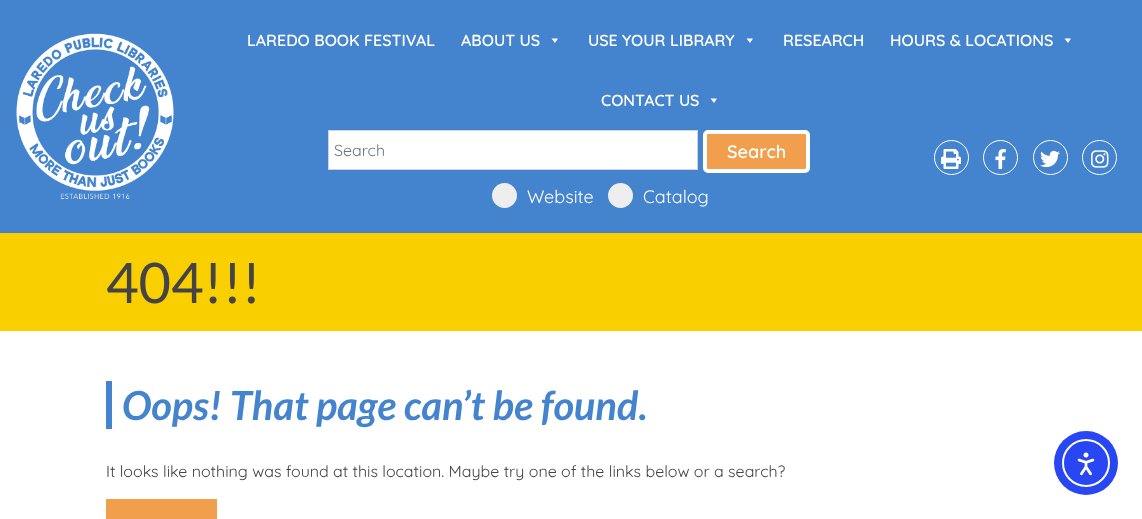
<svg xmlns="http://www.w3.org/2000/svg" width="1142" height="519">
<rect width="100%" height="100%" fill="#fff"/>
<rect width="1142" height="233" fill="#4484ce"/>
<image x="16" y="33" width="158" height="166" href="media/1.png"/>
<text x="247" y="46" style="font-family:Quicksand;font-size:16px;font-weight:600;fill:#fff">LAREDO BOOK FESTIVAL</text>
<text x="461" y="46" style="font-family:Quicksand;font-size:16px;font-weight:600;fill:#fff">ABOUT US</text>
<path d="M558 38.5l-3 4.5l-3.5-4.5z" fill="#fff"/>
<text x="588" y="46" style="font-family:Quicksand;font-size:16px;font-weight:600;fill:#fff">USE YOUR LIBRARY</text>
<path d="M753 38.5l-3 4.5l-3.5-4.5z" fill="#fff"/>
<text x="783" y="46" style="font-family:Quicksand;font-size:16px;font-weight:600;fill:#fff">RESEARCH</text>
<text x="890" y="46" style="font-family:Quicksand;font-size:16px;font-weight:600;fill:#fff">HOURS &amp; LOCATIONS</text>
<path d="M1071 38.5l-3 4.5l-3.5-4.5z" fill="#fff"/>
<text x="601" y="106" style="font-family:Quicksand;font-size:16px;font-weight:600;fill:#fff">CONTACT US</text>
<path d="M717 98.5l-3 4.5l-3.5-4.5z" fill="#fff"/>
<rect x="328.5" y="130.5" width="369" height="39" fill="#fff" stroke="#ced4da"/>
<text x="334" y="156" style="font-family:Quicksand;font-size:16px;fill:#6c757d">Search</text>
<rect x="705" y="132" width="103" height="39" rx="3" fill="#f19f4d" stroke="#fff" stroke-width="4"/>
<text x="727" y="158" style="font-family:Quicksand;font-size:18px;font-weight:600;fill:#fff">Search</text>
<circle cx="504.5" cy="195.5" r="12.5" fill="#eee"/>
<text x="527" y="203" style="font-family:Quicksand;font-size:18px;fill:#fff">Website</text>
<circle cx="620.5" cy="195.5" r="12.5" fill="#eee"/>
<text x="643" y="203" style="font-family:Quicksand;font-size:18px;fill:#fff">Catalog</text>
<circle cx="951.5" cy="157.5" r="17" fill="none" stroke="#fff"/>
<image x="941" y="149" width="20" height="20" href="media/2.png"/>
<circle cx="1000.5" cy="157.5" r="17" fill="none" stroke="#fff"/>
<image x="995" y="149" width="11" height="20" href="media/3.png"/>
<circle cx="1050.5" cy="157.5" r="17" fill="none" stroke="#fff"/>
<image x="1040" y="150" width="20" height="18" href="media/4.png"/>
<circle cx="1099.5" cy="157.5" r="17" fill="none" stroke="#fff"/>
<image x="1091" y="150" width="18" height="18" href="media/5.png"/>
<rect y="233" width="1142" height="98" fill="#f9cf00"/>
<text x="106" y="303" style="font-family:Lato;font-size:56px;fill:#444345">404!!!</text>
<rect x="106" y="381" width="6" height="48" fill="#4484ce"/>
<text x="122" y="420" style="font-family:Lato;font-size:40px;font-weight:bold;font-style:italic;fill:#4484ce">Oops! That page can’t be found.</text>
<text x="106" y="477" style="font-family:Quicksand;font-size:16px;fill:#444345">It looks like nothing was found at this location. Maybe try one of the links below or a search?</text>
<rect x="106" y="499" width="111" height="20" fill="#f19f4d"/>
<circle cx="1086" cy="463" r="32" fill="#2847f3"/>
<circle cx="1086" cy="463" r="23" fill="none" stroke="#fff" stroke-width="2"/>
<image x="1077" y="452" width="18" height="24" href="media/6.png"/>
</svg>
